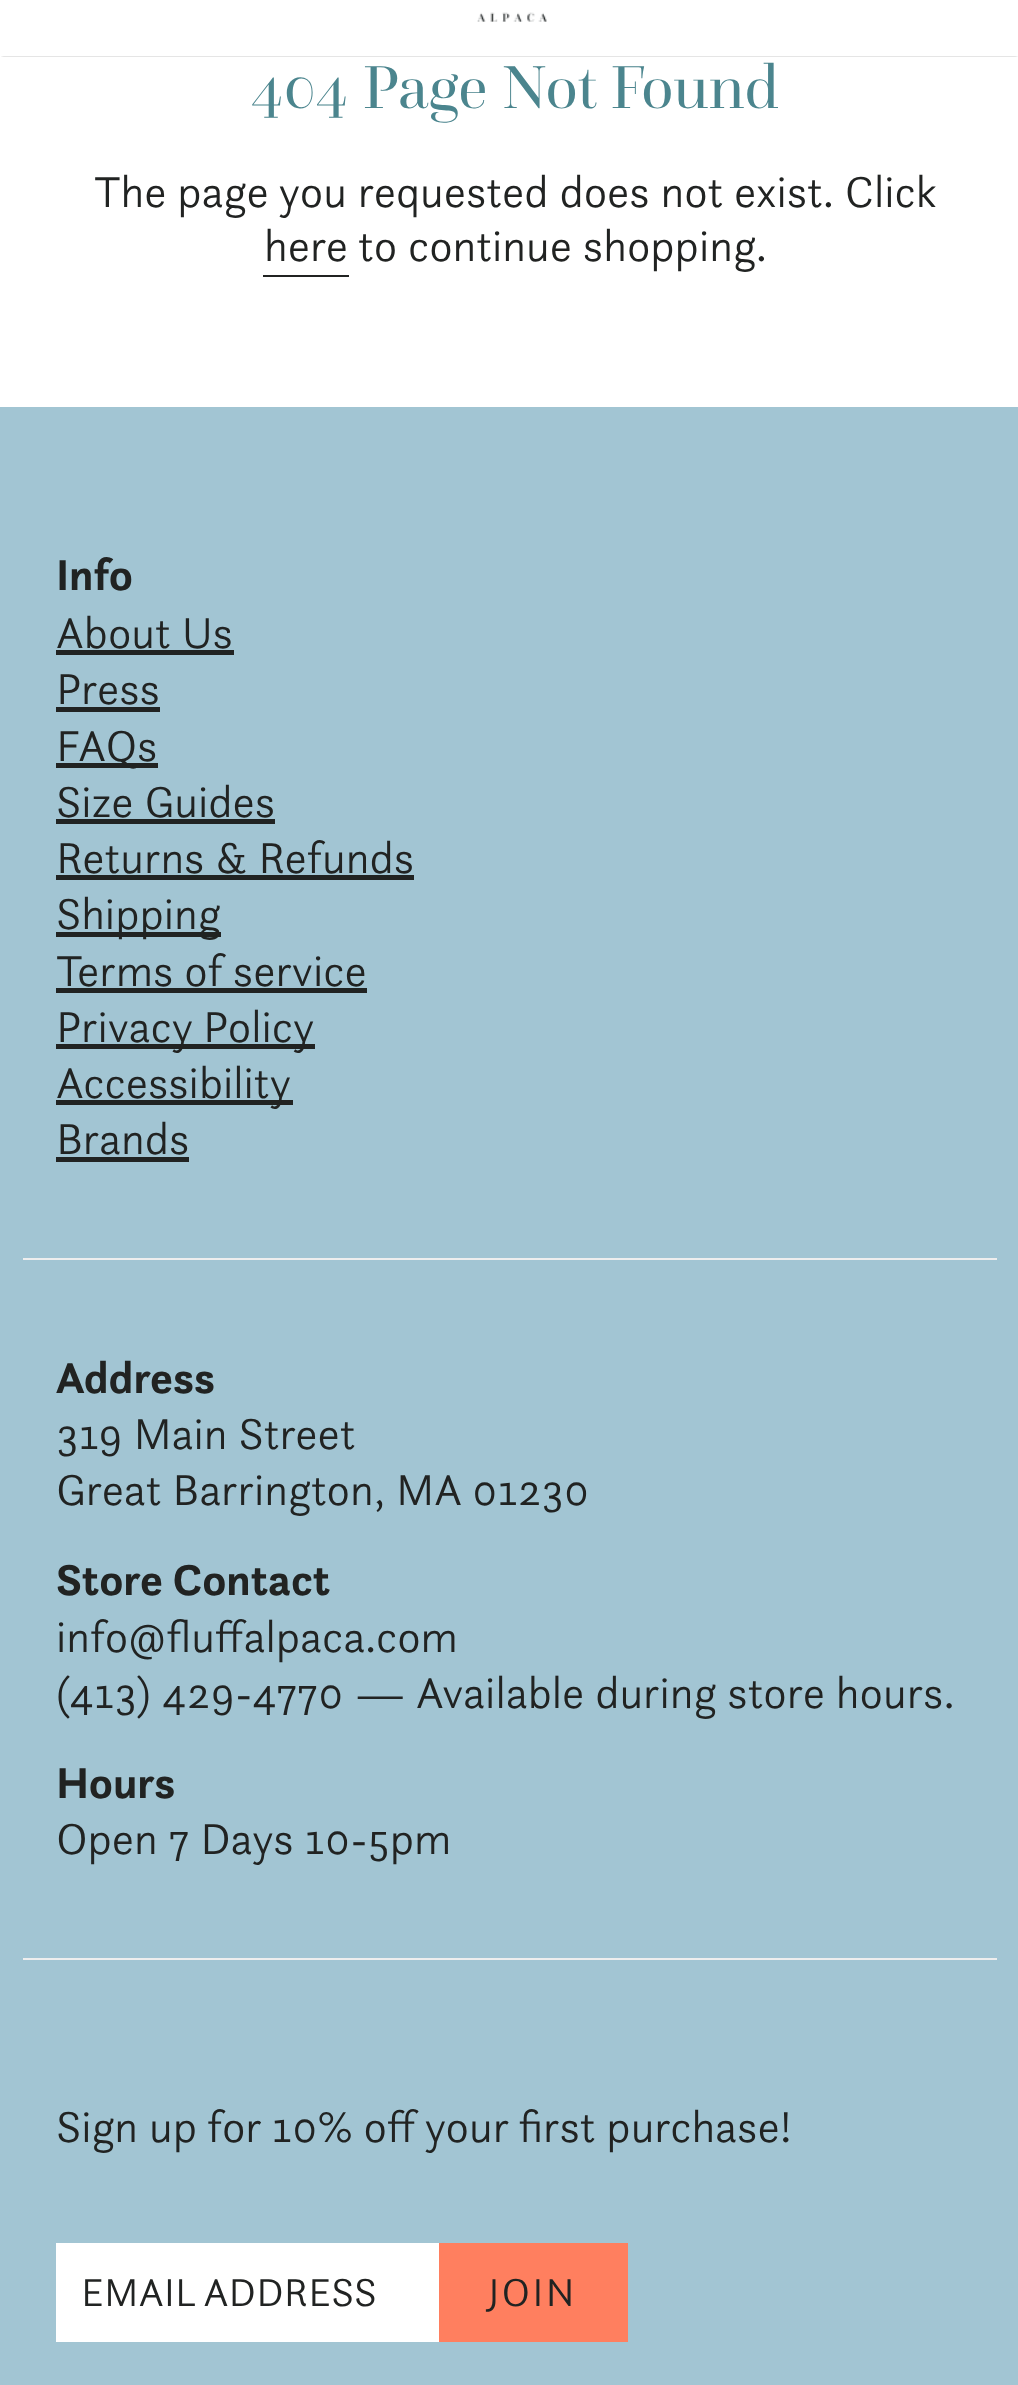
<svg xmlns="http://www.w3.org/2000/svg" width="1018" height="2385">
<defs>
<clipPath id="clip1"><rect x="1" y="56" width="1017" height="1"/></clipPath>
</defs>
<rect width="100%" height="100%" fill="#fff"/>
<g clip-path="url(#clip1)">
<rect x="2" y="-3" width="1015" height="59" fill="#0000004d" filter="blur(1px)"/>
</g>
<image x="477" y="12" width="70" height="10" href="media/1.png"/>
<text x="251" y="108" style="font-family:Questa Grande;font-size:63px;fill:#4b858e">404 Page Not Found</text>
<text x="94" y="207" style="font-family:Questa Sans;font-size:45px;font-weight:300;fill:#212322">The page you requested does not exist. Click</text>
<text x="264" y="261" style="font-family:Questa Sans;font-size:45px;font-weight:300;fill:#212322">here</text>
<rect x="263" y="275" width="86" height="2" fill="#212322"/>
<text x="358" y="261" style="font-family:Questa Sans;font-size:45px;font-weight:300;fill:#212322">to continue shopping.</text>
<rect y="407" width="1018" height="1978" fill="#a2c5d3"/>
<text x="56" y="590" style="font-family:Questa Sans;font-size:45px;font-weight:bold;fill:#212322">Info</text>
<text x="56" y="648" style="font-family:Questa Sans;font-size:45px;font-weight:300;fill:#212322">About Us</text>
<rect x="56" y="650" width="178" height="5" fill="#212322"/>
<text x="56" y="704" style="font-family:Questa Sans;font-size:45px;font-weight:300;fill:#212322">Press</text>
<rect x="56" y="707" width="104" height="5" fill="#212322"/>
<rect x="56" y="763" width="102" height="5" fill="#212322"/>
<text x="56" y="761" style="font-family:Questa Sans;font-size:45px;font-weight:300;fill:#212322">FAQs</text>
<text x="56" y="817" style="font-family:Questa Sans;font-size:45px;font-weight:300;fill:#212322">Size Guides</text>
<rect x="56" y="819" width="219" height="5" fill="#212322"/>
<text x="56" y="873" style="font-family:Questa Sans;font-size:45px;font-weight:300;fill:#212322">Returns &amp; Refunds</text>
<rect x="56" y="875" width="358" height="5" fill="#212322"/>
<rect x="56" y="932" width="165" height="5" fill="#212322"/>
<text x="56" y="929" style="font-family:Questa Sans;font-size:45px;font-weight:300;fill:#212322">Shipping</text>
<text x="56" y="986" style="font-family:Questa Sans;font-size:45px;font-weight:300;fill:#212322">Terms of service</text>
<rect x="56" y="988" width="311" height="5" fill="#212322"/>
<rect x="56" y="1044" width="259" height="5" fill="#212322"/>
<text x="56" y="1042" style="font-family:Questa Sans;font-size:45px;font-weight:300;fill:#212322">Privacy Policy</text>
<rect x="56" y="1100" width="237" height="5" fill="#212322"/>
<text x="56" y="1098" style="font-family:Questa Sans;font-size:45px;font-weight:300;fill:#212322">Accessibility</text>
<text x="56" y="1154" style="font-family:Questa Sans;font-size:45px;font-weight:300;fill:#212322">Brands</text>
<rect x="56" y="1157" width="133" height="5" fill="#212322"/>
<rect x="23" y="1258" width="974" height="2" fill="#eee"/>
<rect x="23" y="1958" width="974" height="2" fill="#eee"/>
<text x="56" y="1393" style="font-family:Questa Sans;font-size:45px;font-weight:bold;fill:#212322">Address</text>
<text x="56" y="1449" style="font-family:Questa Sans;font-size:45px;font-weight:300;fill:#212322">319 Main Street</text>
<text x="56" y="1505" style="font-family:Questa Sans;font-size:45px;font-weight:300;fill:#212322">Great Barrington, MA 01230</text>
<text x="56" y="1595" style="font-family:Questa Sans;font-size:45px;font-weight:bold;fill:#212322">Store Contact</text>
<text x="56" y="1652" style="font-family:Questa Sans;font-size:45px;font-weight:300;fill:#212322">info@fluffalpaca.com</text>
<text x="56" y="1708" style="font-family:Questa Sans;font-size:45px;font-weight:300;fill:#212322">(413) 429-4770 — Available during store hours.</text>
<text x="56" y="1798" style="font-family:Questa Sans;font-size:45px;font-weight:bold;fill:#212322">Hours</text>
<text x="56" y="1854" style="font-family:Questa Sans;font-size:45px;font-weight:300;fill:#212322">Open 7 Days 10-5pm</text>
<text x="56" y="2142" style="font-family:Questa Sans;font-size:45px;font-weight:300;fill:#212322">Sign up for 10% off your first purchase!</text>
<rect x="56" y="2243" width="383" height="99" fill="#fff"/>
<text x="81" y="2306" style="font-family:Questa Sans;font-size:40.5px;font-weight:300;fill:#212322">EMAIL ADDRESS</text>
<rect x="439" y="2243" width="189" height="99" fill="#ff7f5f"/>
<text x="488" y="2306" style="font-family:Questa Sans;font-size:40.5px;font-weight:300;letter-spacing:2px;fill:#212322">JOIN</text>
</svg>
